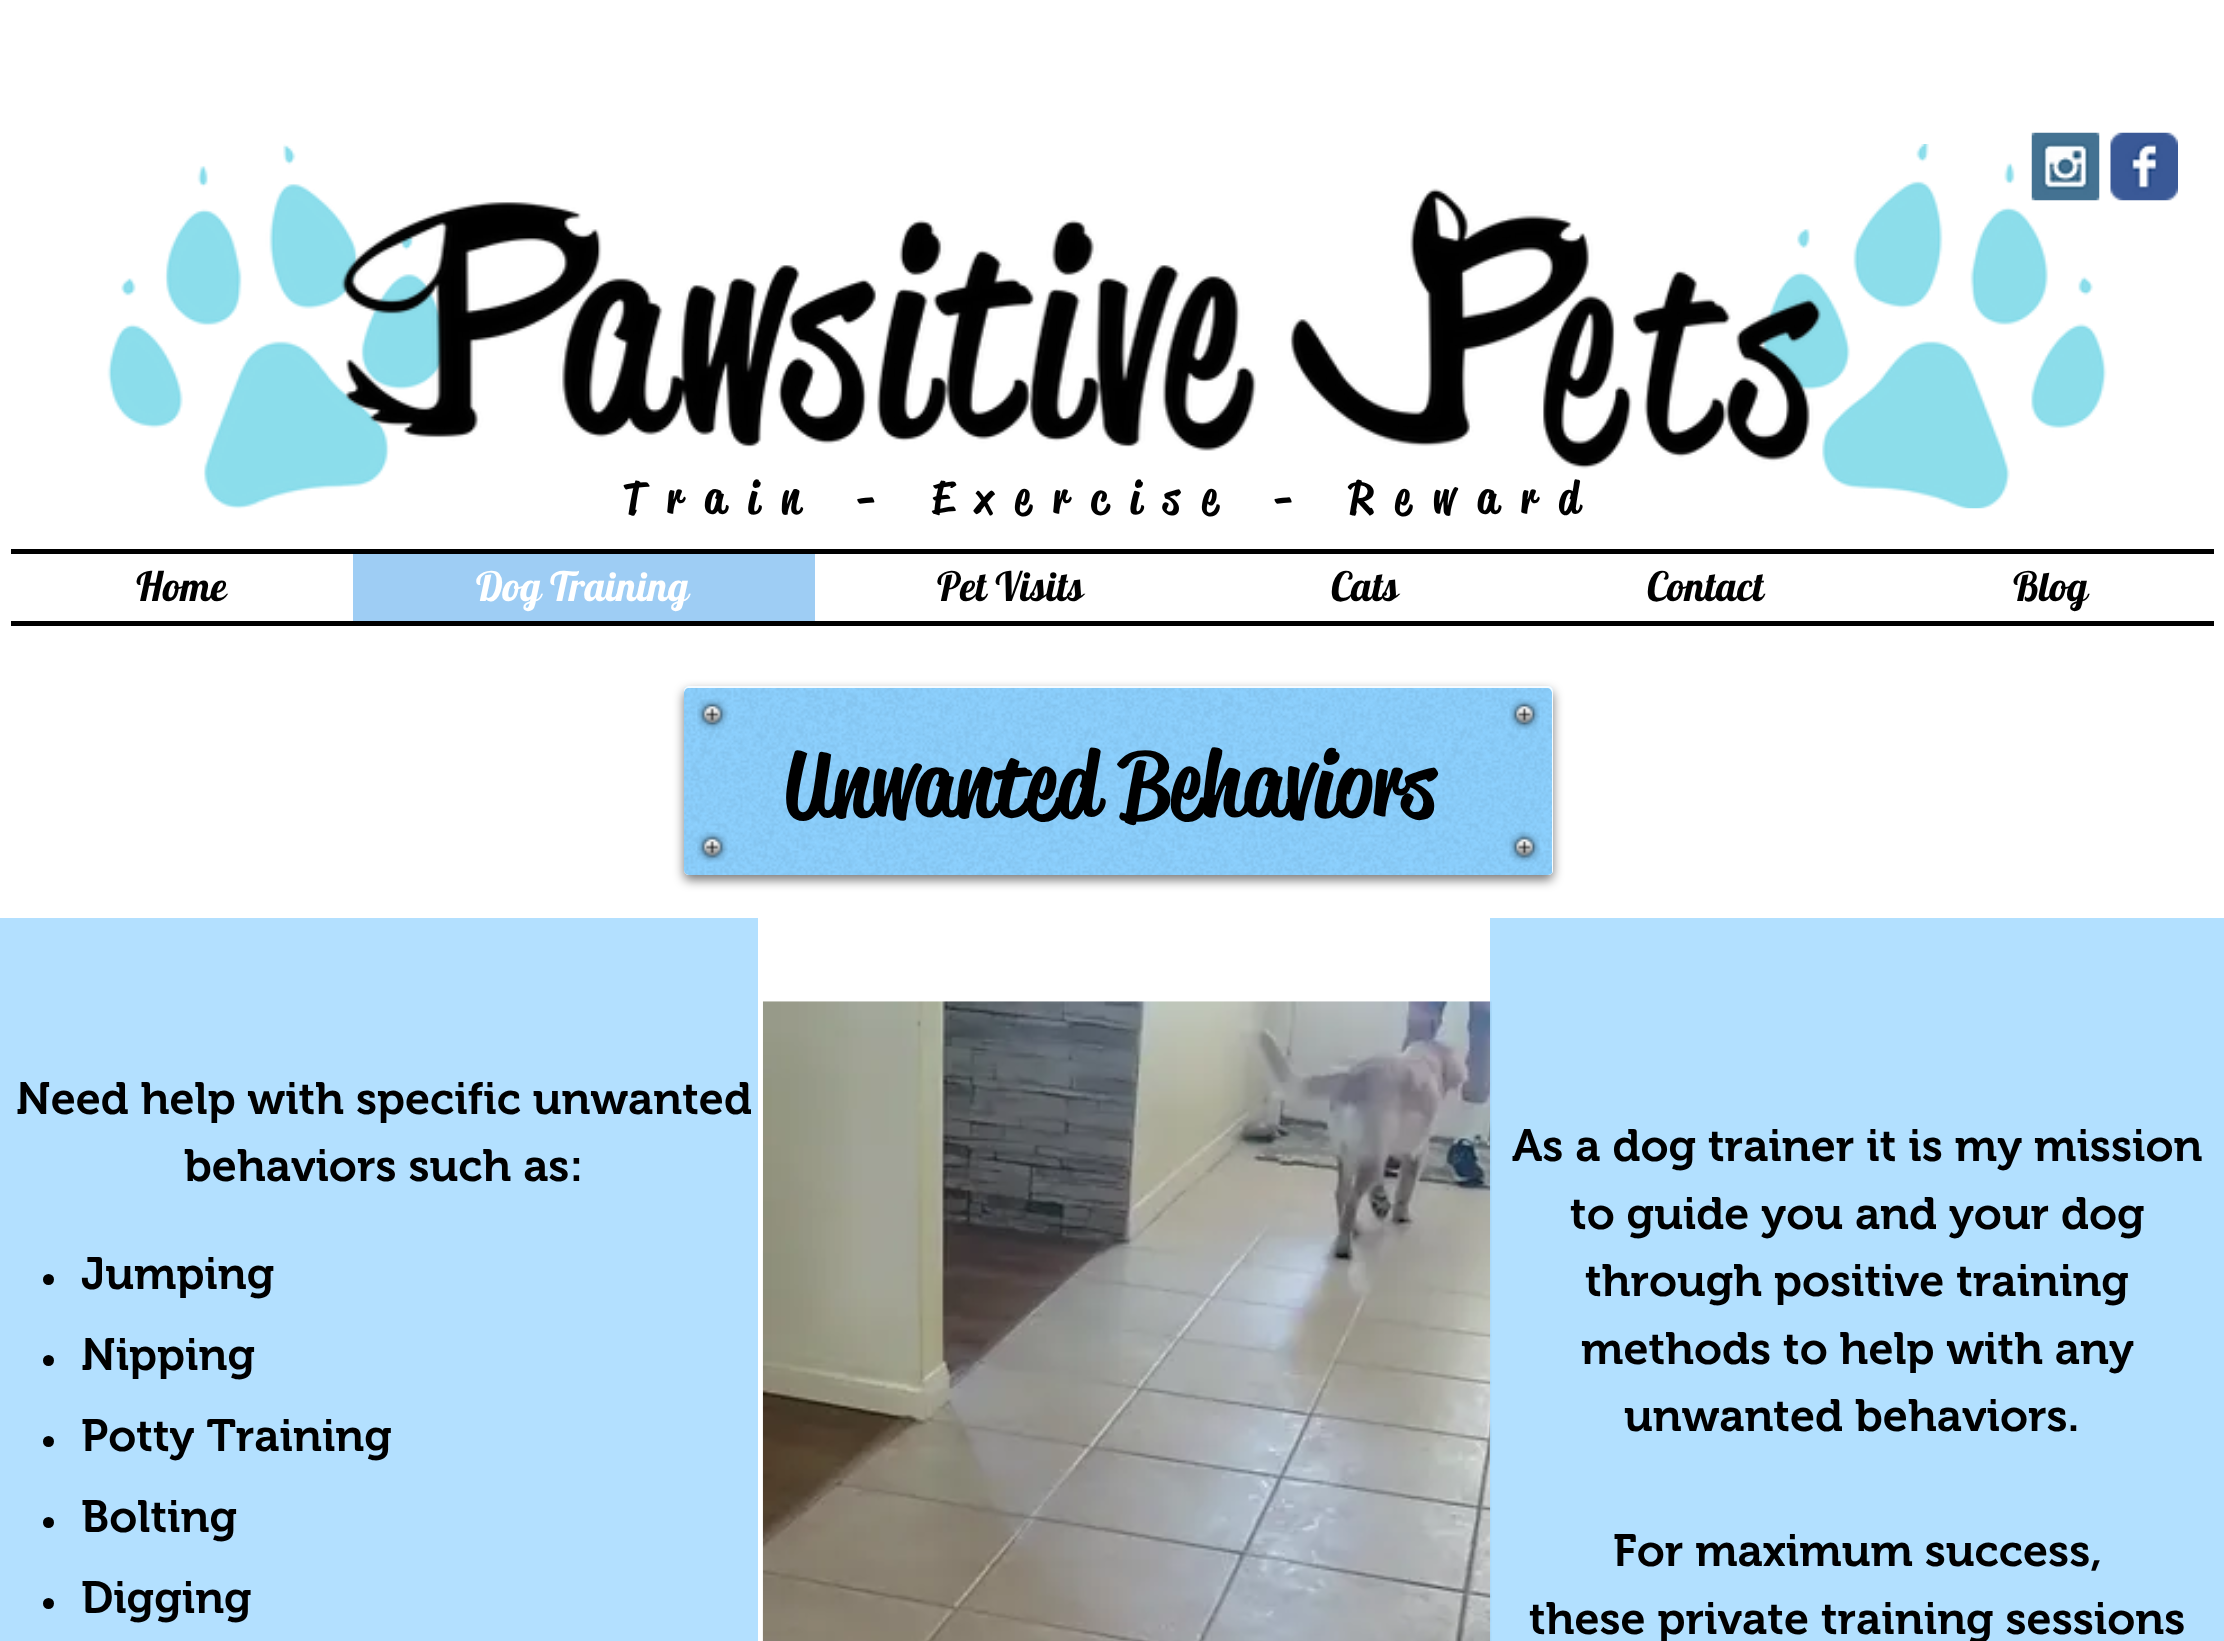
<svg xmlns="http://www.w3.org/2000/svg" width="2224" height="1641">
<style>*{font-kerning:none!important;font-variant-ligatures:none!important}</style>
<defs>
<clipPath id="clip1"><path d="M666 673h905v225h-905zm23 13h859c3 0 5 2 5 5v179c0 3-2 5-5 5h-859c-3 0-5-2-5-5v-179c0-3 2-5 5-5z" clip-rule="evenodd"/></clipPath>
</defs>
<rect width="100%" height="100%" fill="#fff"/>
<image x="107" y="144" width="339" height="365" href="media/1.png"/>
<image x="1763" y="144" width="344" height="365" href="media/6.png"/>
<image x="2031" y="132" width="69" height="69" href="media/2.png"/>
<image x="2110" y="132" width="68" height="69" href="media/3.png"/>
<image x="341" y="202" width="915" height="249" href="media/4.png"/>
<image x="1289" y="188" width="532" height="281" href="media/5.png"/>
<text x="623" y="513" style="font-family:'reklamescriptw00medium';font-size:45px;font-weight:500;letter-spacing:22.5px;fill:#000">Train - Exercise - Reward</text>
<rect x="11" y="549" width="2203" height="5" fill="#000"/>
<rect x="11" y="621" width="2203" height="5" fill="#000"/>
<text x="136" y="601" style="font-family:Lobster;font-size:40.5px;fill:#000">Home</text>
<rect x="353" y="554" width="462" height="67" fill="#9ecdf4"/>
<text x="476" y="601" style="font-family:Lobster;font-size:40.5px;fill:#fff">Dog Training</text>
<text x="937" y="601" style="font-family:Lobster;font-size:40.5px;fill:#000">Pet Visits</text>
<text x="1331" y="601" style="font-family:Lobster;font-size:40.5px;fill:#000">Cats</text>
<text x="1647" y="601" style="font-family:Lobster;font-size:40.5px;fill:#000">Contact</text>
<text x="2013" y="601" style="font-family:Lobster;font-size:40.5px;fill:#000">Blog</text>
<g clip-path="url(#clip1)">
<rect x="684" y="691" width="869" height="189" rx="5" fill="#00000087" filter="blur(5.5px)"/>
</g>
<rect x="684" y="686" width="869" height="189" rx="5" fill="#7fccffe6"/>
<image x="684" y="686" width="868" height="189" href="media/7.png"/>
<path d="M688 688h860c2 0 4 3 4 5v180c1-1 1-2 1-3v-179c0-3-2-5-5-5h-859c-3 0-5 2-5 5v2c0-2 2-5 4-5z" fill="#ffffffeb"/>
<image x="697" y="699" width="31" height="31" href="media/8.png"/>
<image x="1509" y="699" width="31" height="31" href="media/9.png"/>
<text x="785" y="815" style="font-family:'reklamescriptw00medium';font-size:90px;font-weight:500;fill:#000">Unwanted Behaviors</text>
<image x="697" y="832" width="31" height="31" href="media/10.png"/>
<image x="1509" y="832" width="31" height="31" href="media/11.png"/>
<rect y="918" width="758" height="723" fill="#b3e0ff"/>
<text x="16" y="1114" style="font-family:'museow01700';font-size:45px;font-weight:600;fill:#000">Need help with specific unwanted</text>
<text x="184" y="1181" style="font-family:'museow01700';font-size:45px;font-weight:600;fill:#000">behaviors such as:</text>
<circle cx="48.5" cy="1279.5" r="5.5" fill="#000"/>
<text x="81" y="1289" style="font-family:'museow01700';font-size:45px;font-weight:600;fill:#000">Jumping</text>
<circle cx="48.5" cy="1360.5" r="5.5" fill="#000"/>
<text x="81" y="1370" style="font-family:'museow01700';font-size:45px;font-weight:600;fill:#000">Nipping</text>
<circle cx="48.5" cy="1441.5" r="5.5" fill="#000"/>
<text x="81" y="1451" style="font-family:'museow01700';font-size:45px;font-weight:600;fill:#000">Potty Training</text>
<circle cx="48.5" cy="1522.5" r="5.5" fill="#000"/>
<text x="81" y="1532" style="font-family:'museow01700';font-size:45px;font-weight:600;fill:#000">Bolting</text>
<circle cx="48.5" cy="1603.5" r="5.5" fill="#000"/>
<text x="81" y="1613" style="font-family:'museow01700';font-size:45px;font-weight:600;fill:#000">Digging</text>
<image x="762" y="1001" width="730" height="640" href="media/12.png"/>
<rect x="1490" y="918" width="734" height="723" fill="#aaddffe6"/>
<text x="1512" y="1161" style="font-family:'museow01700';font-size:45px;font-weight:600;fill:#000">As a dog trainer it is my mission</text>
<text x="1570" y="1229" style="font-family:'museow01700';font-size:45px;font-weight:600;fill:#000">to guide you and your dog</text>
<text x="1585" y="1296" style="font-family:'museow01700';font-size:45px;font-weight:600;fill:#000">through positive training</text>
<text x="1581" y="1364" style="font-family:'museow01700';font-size:45px;font-weight:600;fill:#000">methods to help with any</text>
<text x="1624" y="1431" style="font-family:'museow01700';font-size:45px;font-weight:600;fill:#000">unwanted behaviors.</text>
<text x="1613" y="1566" style="font-family:'museow01700';font-size:45px;font-weight:600;fill:#000">For maximum success,</text>
<text x="1529" y="1634" style="font-family:'museow01700';font-size:45px;font-weight:600;fill:#000">these private training sessions</text>
</svg>
